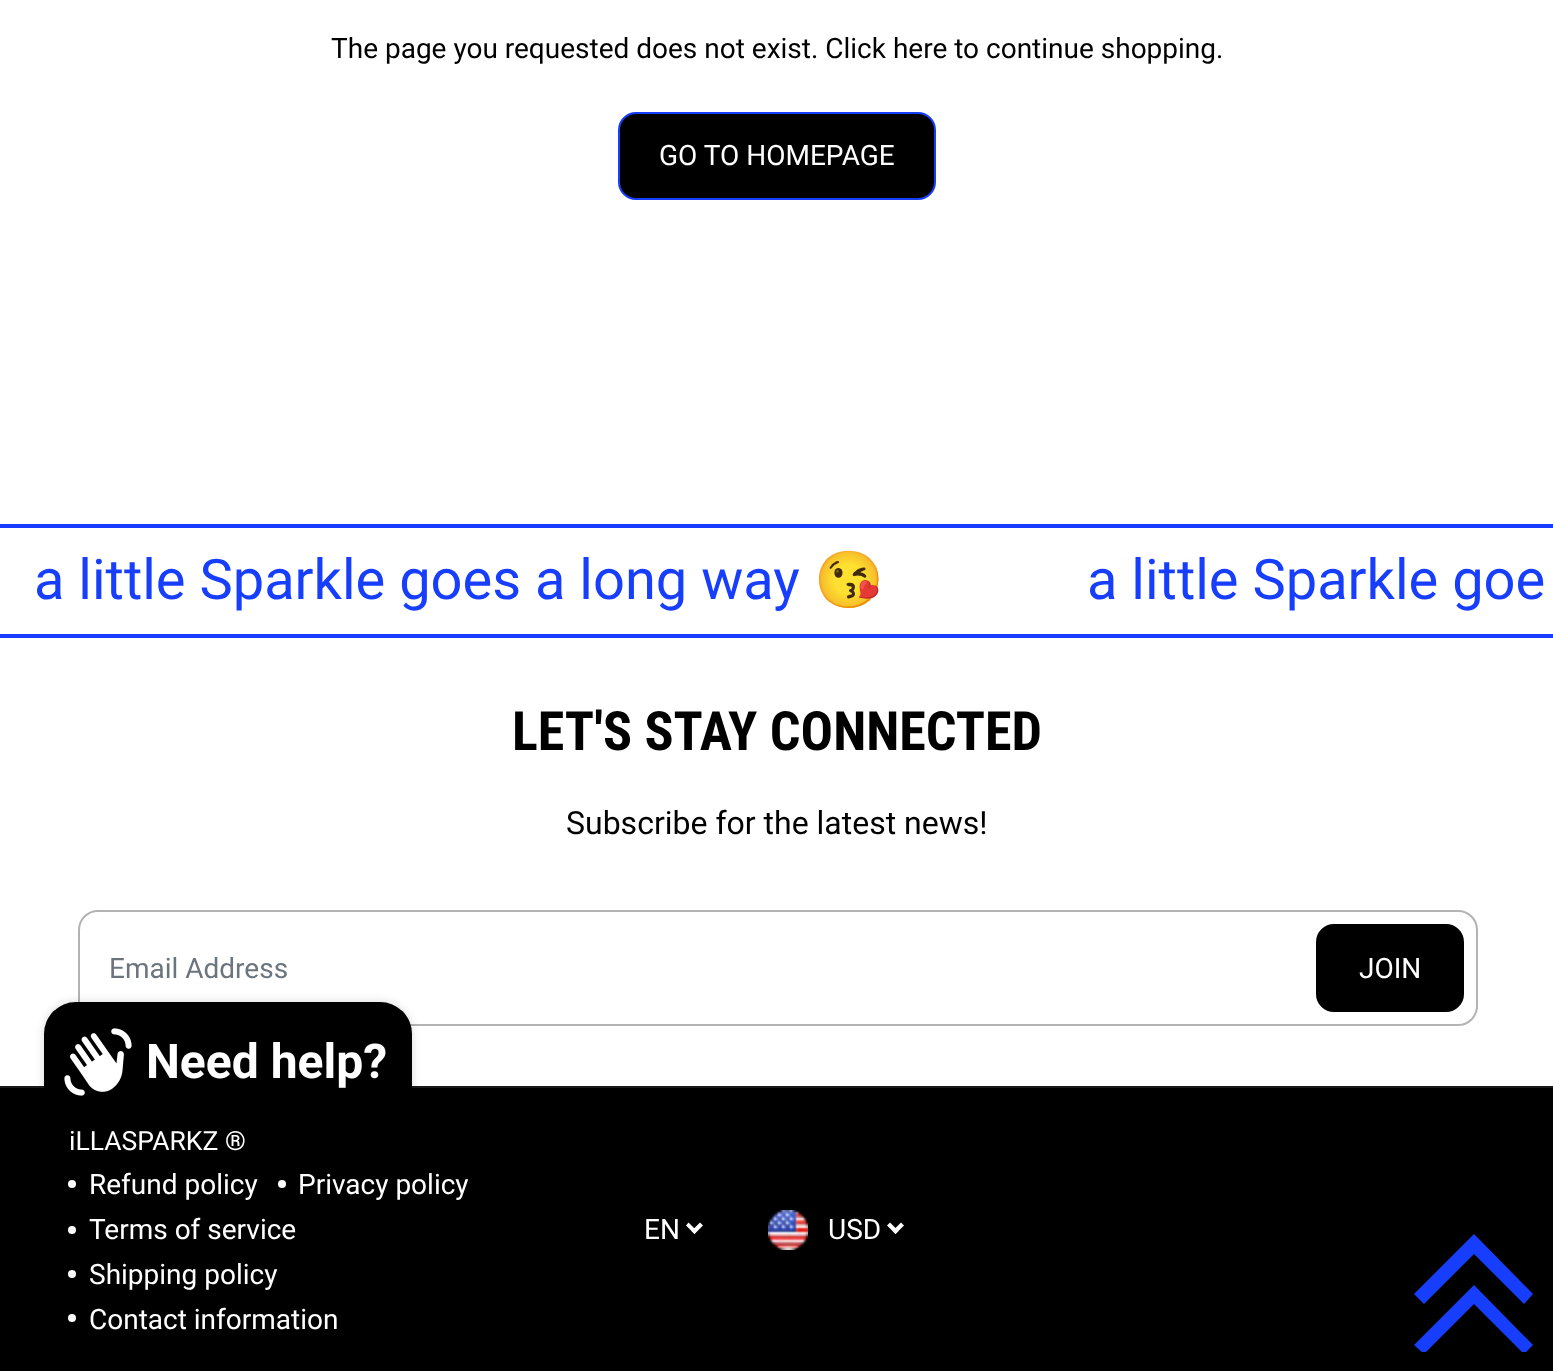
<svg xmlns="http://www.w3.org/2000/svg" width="1553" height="1371">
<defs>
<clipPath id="clip1"><rect x="1414" y="1232" width="120" height="120"/></clipPath>
</defs>
<rect width="100%" height="100%" fill="#fff"/>
<text x="331" y="58" style="font-family:Roboto;font-size:28px;fill:#000">The page you requested does not exist. Click here to continue shopping.</text>
<rect x="619" y="113" width="316" height="86" rx="17" fill="#000" stroke="#163efc" stroke-width="2"/>
<text x="659" y="165" style="font-family:Roboto;font-size:28px;fill:#fff">GO TO HOMEPAGE</text>
<rect y="524" width="1553" height="4" fill="#163efc"/>
<rect y="634" width="1553" height="4" fill="#163efc"/>
<text x="34" y="599" style="font-family:Roboto;font-size:56px;fill:#163efc">a little Sparkle goes a long way</text>
<text x="814" y="599" style="font-family:Noto Color Emoji;font-size:56px;fill:#163efc">😘</text>
<text x="1087" y="599" style="font-family:Roboto;font-size:56px;fill:#163efc">a little Sparkle goe</text>
<text x="512" y="750" style="font-family:Roboto Condensed;font-size:54px;font-weight:bold;fill:#000">LET'S STAY CONNECTED</text>
<text x="566" y="834" style="font-family:Roboto;font-size:32px;fill:#000">Subscribe for the latest news!</text>
<rect x="79" y="911" width="1398" height="114" rx="19" fill="none" stroke="#b3b3b3" stroke-width="2"/>
<text x="109" y="978" style="font-family:Roboto;font-size:28px;fill:#6c757d">Email Address</text>
<rect x="1317" y="925" width="146" height="86" rx="17" fill="#000" stroke="#000" stroke-width="2"/>
<text x="1359" y="978" style="font-family:Roboto;font-size:28px;fill:#fff">JOIN</text>
<rect y="1088" width="1553" height="283" fill="#000"/>
<rect y="1086" width="1553" height="2" fill="#1a1a1a"/>
<text x="69" y="1150" style="font-family:Roboto;font-size:26.5px;fill:#fff">iLLASPARKZ ®</text>
<circle cx="72" cy="1184" r="4" fill="#fff"/>
<text x="89" y="1194" style="font-family:Roboto;font-size:28px;fill:#fff">Refund policy</text>
<circle cx="282" cy="1184" r="4" fill="#fff"/>
<text x="298" y="1194" style="font-family:Roboto;font-size:28px;fill:#fff">Privacy policy</text>
<circle cx="72" cy="1230" r="4" fill="#fff"/>
<text x="89" y="1239" style="font-family:Roboto;font-size:28px;fill:#fff">Terms of service</text>
<circle cx="72" cy="1274" r="4" fill="#fff"/>
<text x="89" y="1284" style="font-family:Roboto;font-size:28px;fill:#fff">Shipping policy</text>
<circle cx="72" cy="1318" r="4" fill="#fff"/>
<text x="89" y="1329" style="font-family:Roboto;font-size:28px;fill:#fff">Contact information</text>
<text x="644" y="1239" style="font-family:Roboto;font-size:28px;fill:#fff">EN</text>
<path d="M700 1222.5l3 3l-8.5 8.5l-3-3z" fill="#fff"/>
<path d="M688.5 1222.5l8.5 8.5l-2.5 3l-8.5-8.5z" fill="#fff"/>
<image x="768" y="1210" width="40" height="40" href="media/1.png"/>
<text x="828" y="1239" style="font-family:Roboto;font-size:28px;fill:#fff">USD</text>
<path d="M901 1222.5l3 3l-8.5 8.5l-3-3z" fill="#fff"/>
<path d="M890 1222.5l8.5 8.5l-3 3l-8.5-8.5z" fill="#fff"/>
<rect x="44" y="1002" width="368" height="120" rx="32" fill="#00000026" filter="blur(5px)"/>
<rect x="44" y="1002" width="368" height="120" rx="32" fill="#000"/>
<image x="64" y="1028" width="68" height="68" href="media/2.png"/>
<text x="146" y="1078" style="font-family:Roboto;font-size:48px;font-weight:bold;fill:#fff">Need help?</text>
<g clip-path="url(#clip1)">
<path d="M1414 1345l10 9l50-50l50 50l9-9l-59-60z" fill="#163efc" fill-rule="evenodd"/>
</g>
<path d="M1414 1294l10 10l50-50l50 50l9-10l-59-60z" fill="#163efc" fill-rule="evenodd"/>
</svg>
